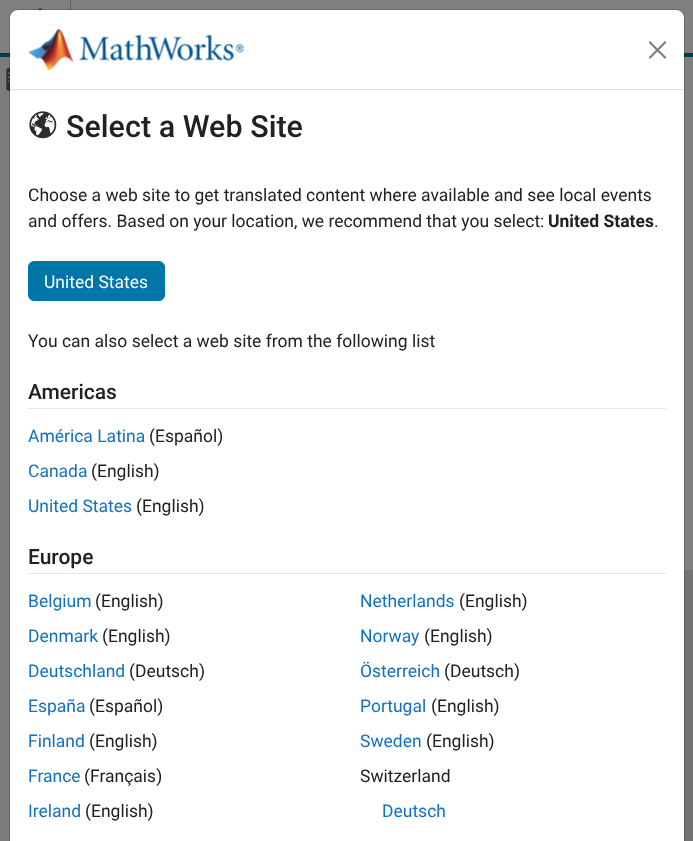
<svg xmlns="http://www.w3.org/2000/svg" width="693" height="841">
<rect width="100%" height="100%" fill="#7b7b7b"/>
<rect width="693" height="53" fill="#808080"/>
<rect y="53" width="693" height="4" fill="#003b54"/>
<rect x="70" width="1" height="10" fill="#606060"/>
<image x="37" y="8" width="6" height="2" href="media/1.png"/>
<image x="6" y="67" width="4" height="24" href="media/2.png"/>
<rect x="684" y="570" width="9" height="271" fill="#737373"/>
<rect x="684" y="57" width="9" height="513" fill="#808080"/>
<path d="M18 10h658c4.5 0 8 3.5 8 8v823h-674v-823c0-4.5 3.5-8 8-8z" fill="#fff"/>
<rect x="9.5" y="9.5" width="675" height="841" rx="8.5" fill="none" stroke="#0000002e"/>
<rect x="10" y="89" width="674" height="1" fill="#dee2e6"/>
<image x="28" y="28" width="216" height="43" href="media/3.png"/>
<image x="649" y="41" width="17" height="18" href="media/4.png"/>
<image x="29" y="111" width="28" height="28" href="media/5.png"/>
<text x="66" y="137" style="font-family:Roboto;font-size:30.5px;font-weight:500;fill:#212121">Select a Web Site</text>
<text x="28" y="201" style="font-family:Roboto;font-size:17.5px;fill:#212121">Choose a web site to get translated content where available and see local events</text>
<text x="28" y="227" style="font-family:Roboto;font-size:17.5px;fill:#212121">and offers. Based on your location, we recommend that you select:</text>
<text x="548" y="227" style="font-family:Roboto;font-size:17.5px;font-weight:bold;fill:#212121">United States</text>
<text x="654" y="227" style="font-family:Roboto;font-size:17.5px;fill:#212121">.</text>
<rect x="28.5" y="261.5" width="136" height="39" rx="5.5" fill="#0076a8" stroke="#0076a8"/>
<text x="44" y="288" style="font-family:Roboto;font-size:17.5px;fill:#fff">United States</text>
<text x="28" y="347" style="font-family:Roboto;font-size:17.5px;fill:#212121">You can also select a web site from the following list</text>
<rect x="28" y="408" width="638" height="1" fill="#e6e6e6"/>
<text x="28" y="399" style="font-family:Roboto;font-size:21px;font-weight:500;fill:#212121">Americas</text>
<text x="28" y="442" style="font-family:Roboto;font-size:17.5px;fill:#1171be">América Latina</text>
<text x="149" y="442" style="font-family:Roboto;font-size:17.5px;fill:#212121">(Español)</text>
<text x="28" y="477" style="font-family:Roboto;font-size:17.5px;fill:#1171be">Canada</text>
<text x="91" y="477" style="font-family:Roboto;font-size:17.5px;fill:#212121">(English)</text>
<text x="28" y="512" style="font-family:Roboto;font-size:17.5px;fill:#1171be">United States</text>
<text x="136" y="512" style="font-family:Roboto;font-size:17.5px;fill:#212121">(English)</text>
<rect x="28" y="573" width="638" height="1" fill="#e6e6e6"/>
<text x="28" y="564" style="font-family:Roboto;font-size:21px;font-weight:500;fill:#212121">Europe</text>
<text x="28" y="607" style="font-family:Roboto;font-size:17.5px;fill:#1171be">Belgium</text>
<text x="95" y="607" style="font-family:Roboto;font-size:17.5px;fill:#212121">(English)</text>
<text x="28" y="642" style="font-family:Roboto;font-size:17.5px;fill:#1171be">Denmark</text>
<text x="102" y="642" style="font-family:Roboto;font-size:17.5px;fill:#212121">(English)</text>
<text x="28" y="677" style="font-family:Roboto;font-size:17.5px;fill:#1171be">Deutschland</text>
<text x="129" y="677" style="font-family:Roboto;font-size:17.5px;fill:#212121">(Deutsch)</text>
<text x="28" y="712" style="font-family:Roboto;font-size:17.5px;fill:#1171be">España</text>
<text x="89" y="712" style="font-family:Roboto;font-size:17.5px;fill:#212121">(Español)</text>
<text x="28" y="747" style="font-family:Roboto;font-size:17.5px;fill:#1171be">Finland</text>
<text x="89" y="747" style="font-family:Roboto;font-size:17.5px;fill:#212121">(English)</text>
<text x="28" y="782" style="font-family:Roboto;font-size:17.5px;fill:#1171be">France</text>
<text x="84" y="782" style="font-family:Roboto;font-size:17.5px;fill:#212121">(Français)</text>
<text x="28" y="817" style="font-family:Roboto;font-size:17.5px;fill:#1171be">Ireland</text>
<text x="85" y="817" style="font-family:Roboto;font-size:17.5px;fill:#212121">(English)</text>
<text x="360" y="607" style="font-family:Roboto;font-size:17.5px;fill:#1171be">Netherlands</text>
<text x="459" y="607" style="font-family:Roboto;font-size:17.5px;fill:#212121">(English)</text>
<text x="360" y="642" style="font-family:Roboto;font-size:17.5px;fill:#1171be">Norway</text>
<text x="424" y="642" style="font-family:Roboto;font-size:17.5px;fill:#212121">(English)</text>
<text x="360" y="677" style="font-family:Roboto;font-size:17.5px;fill:#1171be">Österreich</text>
<text x="444" y="677" style="font-family:Roboto;font-size:17.5px;fill:#212121">(Deutsch)</text>
<text x="360" y="712" style="font-family:Roboto;font-size:17.5px;fill:#1171be">Portugal</text>
<text x="431" y="712" style="font-family:Roboto;font-size:17.5px;fill:#212121">(English)</text>
<text x="360" y="747" style="font-family:Roboto;font-size:17.5px;fill:#1171be">Sweden</text>
<text x="426" y="747" style="font-family:Roboto;font-size:17.5px;fill:#212121">(English)</text>
<text x="360" y="782" style="font-family:Roboto;font-size:17.5px;fill:#212121">Switzerland</text>
<text x="382" y="817" style="font-family:Roboto;font-size:17.5px;fill:#1171be">Deutsch</text>
</svg>
